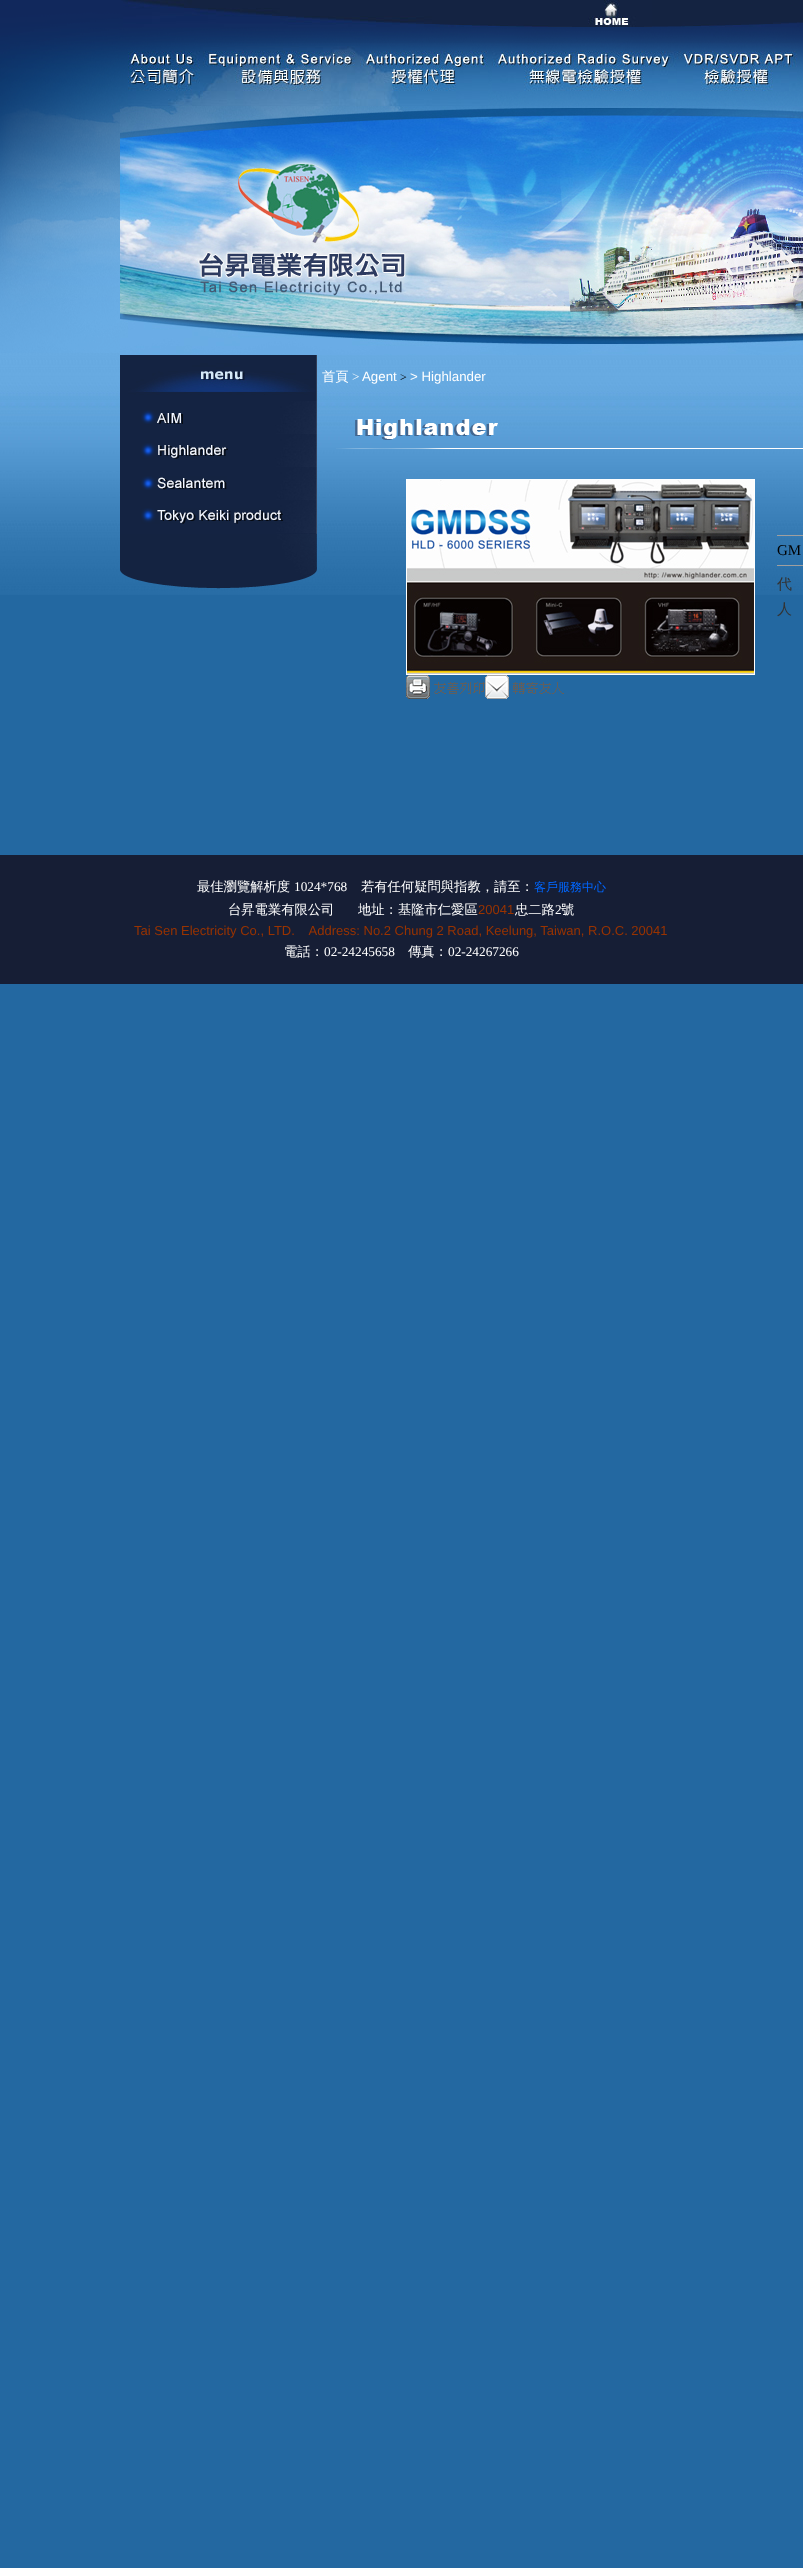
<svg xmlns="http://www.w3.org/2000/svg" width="803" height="2568">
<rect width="100%" height="100%" fill="#2368a1"/>
<image x="0" y="353" width="803" height="242" href="media/1.png"/>
<image x="0" y="0" width="803" height="353" href="media/2.png"/>
<image x="123" y="0" width="369" height="27" href="media/3.png"/>
<image x="492" y="0" width="160" height="27" href="media/4.png"/>
<image x="682" y="22" width="117" height="5" href="media/5.png"/>
<image x="128" y="51" width="75" height="55" href="media/6.png"/>
<image x="203" y="46" width="157" height="60" href="media/7.png"/>
<image x="360" y="51" width="128" height="55" href="media/8.png"/>
<image x="492" y="51" width="184" height="40" href="media/9.png"/>
<image x="677" y="51" width="120" height="40" href="media/10.png"/>
<image x="120" y="106" width="683" height="249" href="media/11.png"/>
<image x="120" y="355" width="197" height="46" href="media/12.png"/>
<image x="120" y="401" width="197" height="133" href="media/13.png"/>
<image x="141" y="410" width="42" height="14" href="media/14.png"/>
<image x="141" y="443" width="87" height="16" href="media/15.png"/>
<image x="141" y="476" width="86" height="14" href="media/16.png"/>
<image x="141" y="508" width="142" height="16" href="media/17.png"/>
<image x="120" y="534" width="197" height="55" href="media/18.png"/>
<text x="322" y="381" style="font-family:WenQuanYi Zen Hei;font-size:13.3px;font-weight:500;fill:#fff">首頁</text>
<text x="352" y="381" style="font-family:Liberation Serif;font-size:13.3px;fill:#fff">&gt;</text>
<text x="362" y="381" style="font-family:Liberation Sans;font-size:13.3px;fill:#fff">Agent</text>
<text x="400" y="381" style="font-family:Liberation Serif;font-size:12px;fill:#000">&gt;</text>
<text x="410" y="381" style="font-family:Liberation Sans;font-size:13.3px;fill:#fff">&gt; Highlander</text>
<image x="336" y="419" width="467" height="30" href="media/19.png"/>
<image x="406" y="479" width="349" height="196" href="media/20.png"/>
<image x="406" y="675" width="79" height="24" href="media/21.png"/>
<image x="485" y="675" width="79" height="24" href="media/22.png"/>
<rect x="777" y="535" width="26" height="1" fill="#9f9f9f"/>
<text x="777" y="555" style="font-family:Liberation Serif;font-size:15px;fill:#000">GM</text>
<rect x="777" y="565" width="26" height="1" fill="#9f9f9f"/>
<text x="777" y="589" style="font-family:WenQuanYi Zen Hei;font-size:15px;font-weight:500;letter-spacing:15px;fill:#333">代</text>
<text x="777" y="614" style="font-family:WenQuanYi Zen Hei;font-size:15px;font-weight:500;letter-spacing:15px;fill:#333">人</text>
<rect y="855" width="803" height="129" fill="#161e35"/>
<text x="197" y="891" style="font-family:WenQuanYi Zen Hei;font-size:13.3px;font-weight:500;fill:#fff">最佳瀏覽解析度</text>
<text x="294" y="891" style="font-family:Liberation Serif;font-size:13.3px;fill:#fff">1024*768</text>
<text x="361" y="891" style="font-family:WenQuanYi Zen Hei;font-size:13.3px;font-weight:500;fill:#fff">若有任何疑問與指教，請至：</text>
<text x="534" y="891" style="font-family:WenQuanYi Zen Hei;font-size:12px;font-weight:500;fill:#06f">客戶服務中心</text>
<text x="228" y="914" style="font-family:WenQuanYi Zen Hei;font-size:13.3px;font-weight:500;fill:#fff">台昇電業有限公司</text>
<text x="358" y="914" style="font-family:WenQuanYi Zen Hei;font-size:13.3px;font-weight:500;fill:#fff">地址：基隆市仁愛區</text>
<text x="478" y="914" style="font-family:Liberation Sans;font-size:13px;fill:#930">20041</text>
<text x="515" y="914" style="font-family:WenQuanYi Zen Hei;font-size:13.3px;font-weight:500;fill:#fff">忠二路</text>
<text x="555" y="914" style="font-family:Liberation Serif;font-size:13.3px;fill:#fff">2</text>
<text x="561" y="914" style="font-family:WenQuanYi Zen Hei;font-size:13.3px;font-weight:500;fill:#fff">號</text>
<text x="134" y="935" style="font-family:Liberation Sans;font-size:13px;fill:#930" xml:space="preserve">Tai Sen Electricity Co., LTD.    Address: No.2 Chung 2 Road, Keelung, Taiwan, R.O.C. 20041</text>
<text x="284" y="956" style="font-family:WenQuanYi Zen Hei;font-size:13.3px;font-weight:500;fill:#fff">電話：</text>
<text x="324" y="956" style="font-family:Liberation Serif;font-size:13.3px;fill:#fff">02-24245658</text>
<text x="408" y="956" style="font-family:WenQuanYi Zen Hei;font-size:13.3px;font-weight:500;fill:#fff">傳真：</text>
<text x="448" y="956" style="font-family:Liberation Serif;font-size:13.3px;fill:#fff">02-24267266</text>
</svg>
